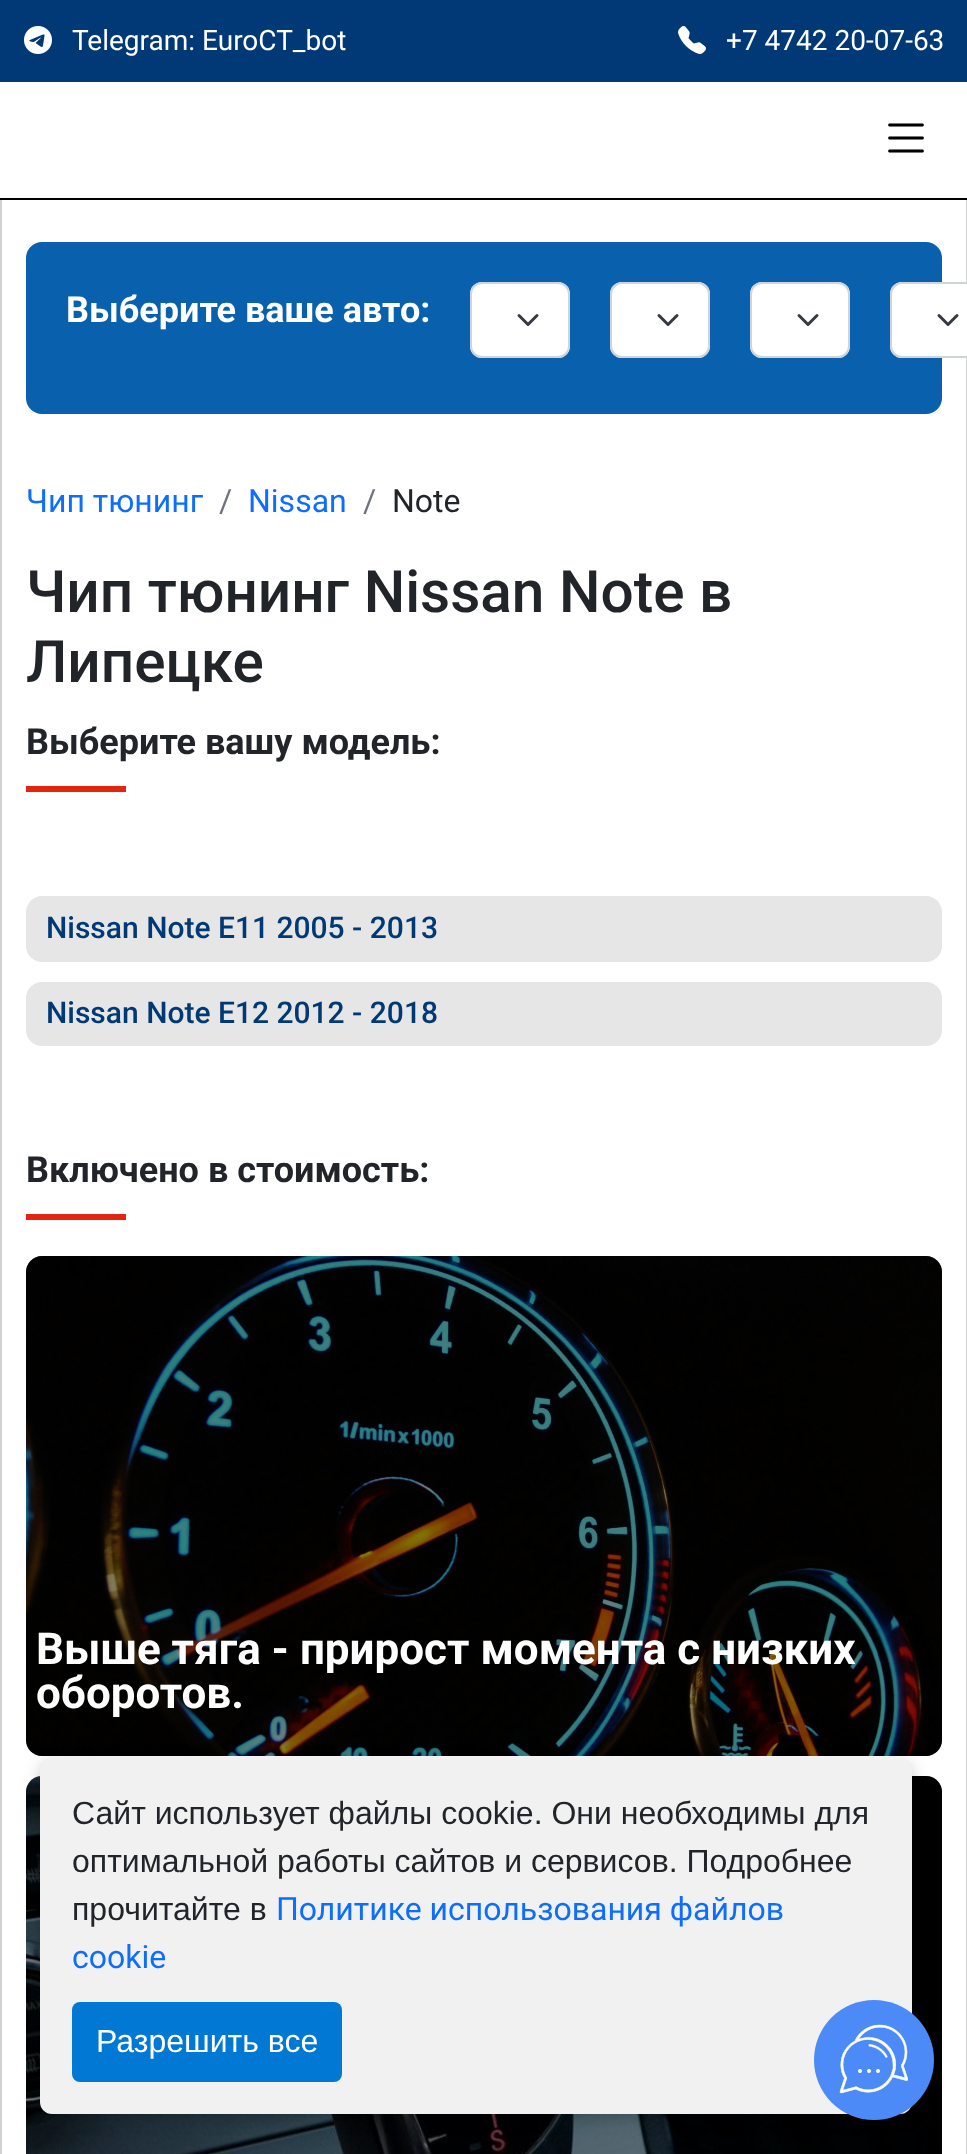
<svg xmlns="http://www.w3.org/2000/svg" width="967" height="2154">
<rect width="100%" height="100%" fill="#fff"/>
<rect x="1" y="1" width="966" height="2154" fill="none" stroke="#d2d2d2" stroke-width="2"/>
<rect y="82" width="967" height="116" fill="#fff"/>
<rect width="967" height="82" fill="#013976"/>
<image x="24" y="26" width="28" height="28" href="media/1.png"/>
<text x="72" y="50" style="font-family:'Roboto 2';font-size:28px;fill:#fff">Telegram: EuroCT_bot</text>
<image x="678" y="26" width="28" height="28" href="media/2.png"/>
<text x="726" y="50" style="font-family:'Roboto 2';font-size:28px;fill:#fff">+7 4742 20-07-63</text>
<rect y="198" width="967" height="2" fill="#000"/>
<image x="888" y="123" width="36" height="30" href="media/3.png"/>
<rect x="26" y="242" width="916" height="172" rx="16" fill="#0961ad"/>
<text x="66" y="322" style="font-family:Roboto;font-size:36px;font-weight:bold;fill:#fff">Выберите ваше авто:</text>
<rect x="470" y="282" width="100" height="76" rx="12" fill="#fff"/>
<path d="M519 315.5l9 9l9-9" fill="none" stroke="#343a40" stroke-width="3" stroke-linecap="round" stroke-linejoin="round"/>
<rect x="471" y="283" width="98" height="74" rx="11" fill="none" stroke="#ced4da" stroke-width="2"/>
<rect x="610" y="282" width="100" height="76" rx="12" fill="#fff"/>
<path d="M659 315.5l9 9l9-9" fill="none" stroke="#343a40" stroke-width="3" stroke-linecap="round" stroke-linejoin="round"/>
<rect x="611" y="283" width="98" height="74" rx="11" fill="none" stroke="#ced4da" stroke-width="2"/>
<rect x="750" y="282" width="100" height="76" rx="12" fill="#fff"/>
<path d="M799 315.5l9 9l9-9" fill="none" stroke="#343a40" stroke-width="3" stroke-linecap="round" stroke-linejoin="round"/>
<rect x="751" y="283" width="98" height="74" rx="11" fill="none" stroke="#ced4da" stroke-width="2"/>
<rect x="890" y="282" width="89" height="76" rx="12" fill="#fff"/>
<path d="M939 315.5l9 9l9-9" fill="none" stroke="#343a40" stroke-width="3" stroke-linecap="round" stroke-linejoin="round"/>
<rect x="891" y="283" width="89" height="74" rx="11" fill="none" stroke="#ced4da" stroke-width="2"/>
<text x="26" y="512" style="font-family:Roboto;font-size:32px;fill:#0d6efd">Чип тюнинг</text>
<text x="219" y="512" style="font-family:'Roboto 2';font-size:32px;fill:#6c757d">/</text>
<text x="248" y="512" style="font-family:'Roboto 2';font-size:32px;fill:#0d6efd">Nissan</text>
<text x="363" y="512" style="font-family:'Roboto 2';font-size:32px;fill:#6c757d">/</text>
<text x="392" y="512" style="font-family:'Roboto 2';font-size:32px;fill:#212529">Note</text>
<text x="26" y="612" style="font-family:Roboto;font-size:58.5px;font-weight:500;fill:#212529">Чип тюнинг Nissan Note в</text>
<text x="26" y="682" style="font-family:Roboto;font-size:58.5px;font-weight:500;fill:#212529">Липецке</text>
<text x="26" y="754" style="font-family:Roboto;font-size:36px;font-weight:bold;fill:#212529">Выберите вашу модель:</text>
<rect x="26" y="786" width="100" height="6" fill="#e5240f"/>
<rect x="26" y="896" width="916" height="66" rx="16" fill="#e6e6e6"/>
<text x="46" y="938" style="font-family:Roboto;font-size:30px;font-weight:500;fill:#013976">Nissan Note E11 2005 - 2013</text>
<rect x="26" y="982" width="916" height="64" rx="16" fill="#e6e6e6"/>
<text x="46" y="1023" style="font-family:Roboto;font-size:30px;font-weight:500;fill:#013976">Nissan Note E12 2012 - 2018</text>
<text x="26" y="1182" style="font-family:Roboto;font-size:36px;font-weight:bold;fill:#212529">Включено в стоимость:</text>
<rect x="26" y="1214" width="100" height="6" fill="#e5240f"/>
<image x="26" y="1256" width="916" height="500" href="media/4.png"/>
<rect x="26" y="1256" width="916" height="500" rx="16" fill="#00000080"/>
<text x="36" y="1664" style="font-family:Roboto;font-size:44px;font-weight:bold;fill:#fff">Выше тяга - прирост момента с низких</text>
<text x="36" y="1708" style="font-family:Roboto;font-size:44px;font-weight:bold;fill:#fff">оборотов.</text>
<image x="26" y="1776" width="916" height="378" href="media/5.png"/>
<rect x="26" y="1776" width="916" height="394" rx="16" fill="#00000080"/>
<rect x="40" y="1762" width="872" height="356" rx="12" fill="#00000033" filter="blur(8px)"/>
<rect x="40" y="1758" width="872" height="356" rx="12" fill="#f1f1f1"/>
<text x="72" y="1824" style="font-family:Liberation Sans;font-size:32px;fill:#212529">Сайт использует файлы cookie. Они необходимы для</text>
<text x="72" y="1872" style="font-family:Liberation Sans;font-size:32px;fill:#212529">оптимальной работы сайтов и сервисов. Подробнее</text>
<text x="72" y="1920" style="font-family:Liberation Sans;font-size:32px;fill:#212529">прочитайте в</text>
<text x="276" y="1920" style="font-family:Roboto;font-size:32px;fill:#0d6efd">Политике использования файлов</text>
<text x="72" y="1968" style="font-family:'Roboto 2';font-size:32px;fill:#0d6efd">cookie</text>
<rect x="72" y="2002" width="270" height="80" rx="8" fill="#0078d4"/>
<text x="96" y="2052" style="font-family:Liberation Sans;font-size:32px;fill:#fff">Разрешить все</text>
<circle cx="874" cy="2060" r="60" fill="#4c8bf7"/>
<image x="839" y="2024" width="70" height="70" href="media/6.png"/>
</svg>
